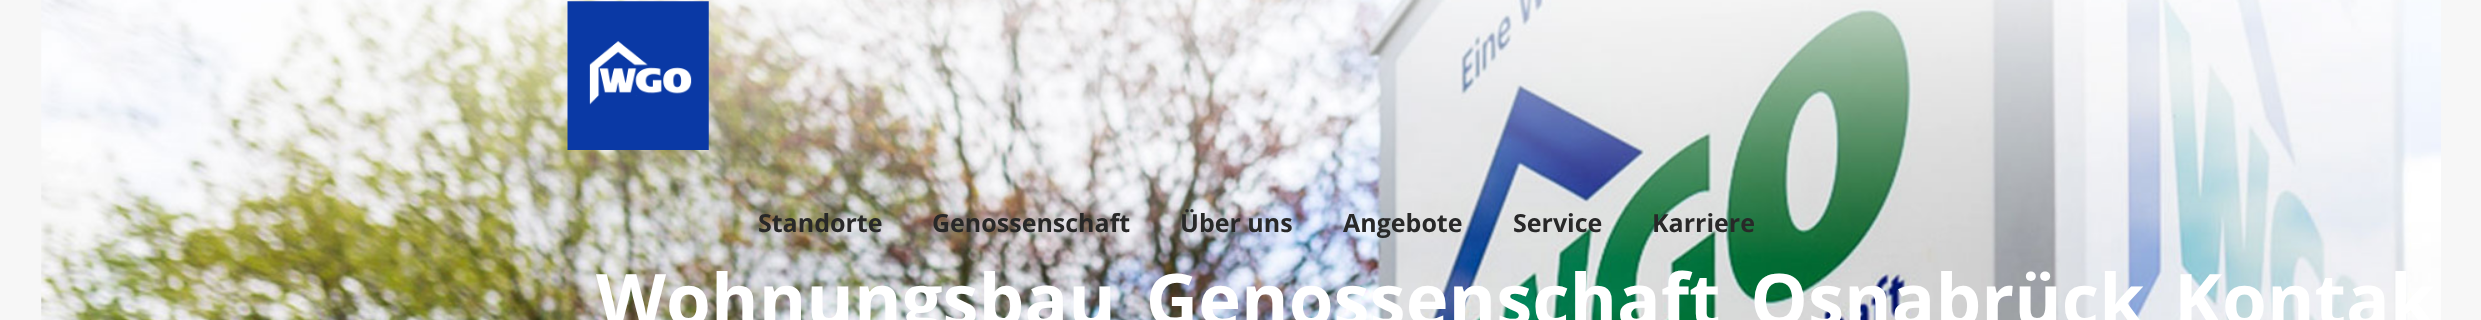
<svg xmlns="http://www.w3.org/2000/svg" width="2481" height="320">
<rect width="100%" height="100%" fill="#f7f7f7"/>
<image x="41" y="0" width="2400" height="320" href="media/2.png"/>
<image x="567" y="1" width="142" height="149" href="media/1.png"/>
<text x="758" y="232" style="font-family:Open Sans;font-size:25px;font-weight:bold;fill:#282828">Standorte</text>
<text x="932" y="232" style="font-family:Open Sans;font-size:25px;font-weight:bold;fill:#282828">Genossenschaft</text>
<text x="1180" y="232" style="font-family:Open Sans;font-size:25px;font-weight:bold;fill:#282828">Über uns</text>
<text x="1343" y="232" style="font-family:Open Sans;font-size:25px;font-weight:bold;fill:#282828">Angebote</text>
<text x="1513" y="232" style="font-family:Open Sans;font-size:25px;font-weight:bold;fill:#282828">Service</text>
<text x="1652" y="232" style="font-family:Open Sans;font-size:25px;font-weight:bold;fill:#282828">Karriere</text>
<text x="596" y="326" style="font-family:Open Sans;font-size:72.5px;font-weight:bold;fill:#fff">Wohnungsbau_Genossenschaft_Osnabrück_Kontak</text>
</svg>
